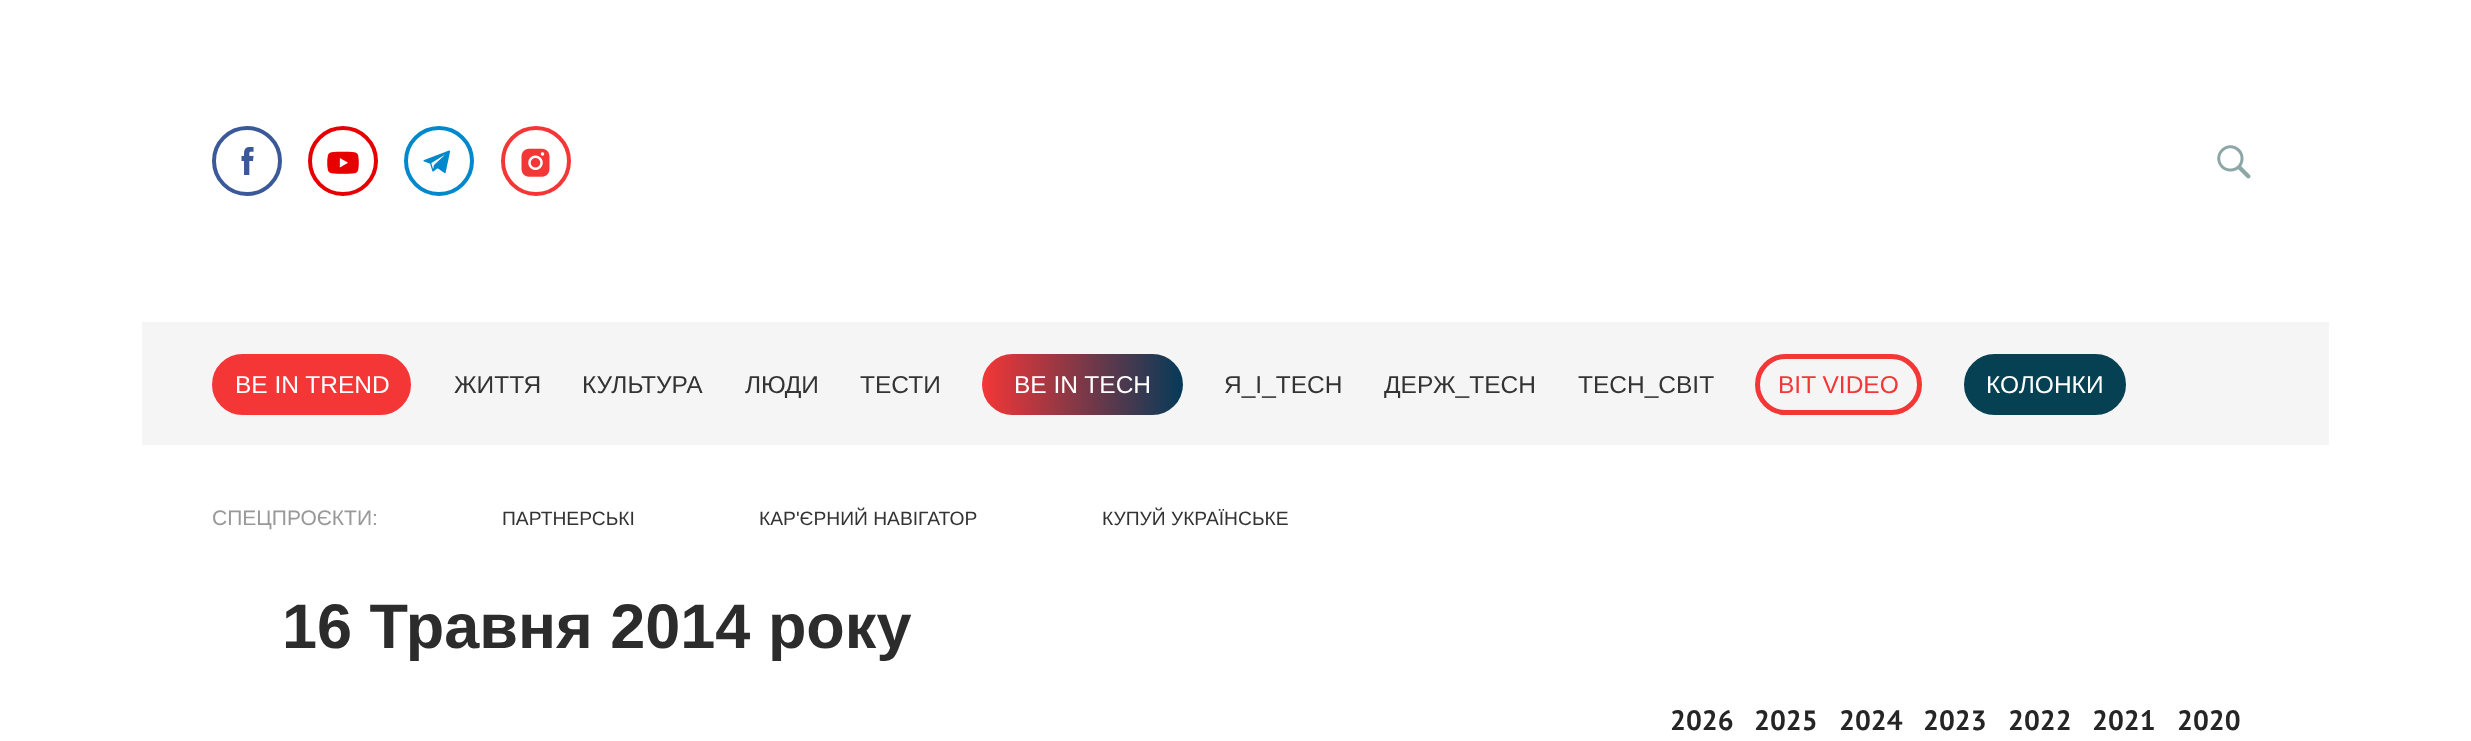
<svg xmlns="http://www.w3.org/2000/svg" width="2471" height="741">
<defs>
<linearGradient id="g1" gradientUnits="userSpaceOnUse" x1="982" y1="384" x2="1183" y2="384"><stop offset="0" stop-color="#f43637"/><stop offset="1" stop-color="#053a58"/></linearGradient>
</defs>
<rect width="100%" height="100%" fill="#fff"/>
<circle cx="247" cy="161" r="33" fill="none" stroke="#3b5998" stroke-width="4"/>
<image x="241" y="147" width="13" height="28" href="media/1.png"/>
<circle cx="343" cy="161" r="33" fill="none" stroke="#e60000" stroke-width="4"/>
<image x="327" y="151" width="32" height="23" href="media/2.png"/>
<circle cx="439" cy="161" r="33" fill="none" stroke="#08c" stroke-width="4"/>
<image x="423" y="150" width="28" height="24" href="media/3.png"/>
<circle cx="536" cy="161" r="33" fill="none" stroke="#f43637" stroke-width="4"/>
<image x="521" y="148" width="29" height="29" href="media/4.png"/>
<image x="2217" y="145" width="34" height="34" href="media/5.png"/>
<rect x="142" y="322" width="2187" height="123" fill="#f5f5f5"/>
<rect x="214.5" y="356.5" width="194" height="56" rx="28" fill="#f43637" stroke="#f43637" stroke-width="5"/>
<text x="235" y="393" style="font-family:Liberation Sans;font-size:24.5px;fill:#fff">BE IN TREND</text>
<text x="454" y="393" style="font-family:Liberation Sans;font-size:24.5px;fill:#333">ЖИТТЯ</text>
<text x="582" y="393" style="font-family:Liberation Sans;font-size:24.5px;fill:#333">КУЛЬТУРА</text>
<text x="745" y="393" style="font-family:Liberation Sans;font-size:24.5px;fill:#333">ЛЮДИ</text>
<text x="860" y="393" style="font-family:Liberation Sans;font-size:24.5px;fill:#333">ТЕСТИ</text>
<rect x="982" y="354" width="201" height="61" rx="30.5" fill="url(#g1)"/>
<text x="1014" y="393" style="font-family:Liberation Sans;font-size:24.5px;fill:#fff">BE IN TECH</text>
<text x="1224" y="393" style="font-family:Liberation Sans;font-size:24.5px;fill:#333">Я_І_TECH</text>
<text x="1384" y="393" style="font-family:Liberation Sans;font-size:24.5px;fill:#333">ДЕРЖ_TECH</text>
<text x="1578" y="393" style="font-family:Liberation Sans;font-size:24.5px;fill:#333">TECH_СВІТ</text>
<rect x="1757.5" y="356.5" width="162" height="56" rx="28" fill="none" stroke="#f43637" stroke-width="5"/>
<text x="1778" y="393" style="font-family:Liberation Sans;font-size:24.5px;fill:#f43637">BIT VIDEO</text>
<rect x="1966.5" y="356.5" width="157" height="56" rx="28" fill="#054053" stroke="#054053" stroke-width="5"/>
<text x="1986" y="393" style="font-family:Liberation Sans;font-size:24.5px;fill:#fff">КОЛОНКИ</text>
<text x="212" y="525" style="font-family:Liberation Sans;font-size:21px;fill:#999">СПЕЦПРОЄКТИ:</text>
<text x="502" y="525" style="font-family:Liberation Sans;font-size:19.25px;fill:#333">ПАРТНЕРСЬКІ</text>
<text x="759" y="525" style="font-family:Liberation Sans;font-size:19.25px;fill:#333">КАР'ЄРНИЙ НАВІГАТОР</text>
<text x="1102" y="525" style="font-family:Liberation Sans;font-size:19.25px;fill:#333">КУПУЙ УКРАЇНСЬКЕ</text>
<text x="282" y="648" style="font-family:Liberation Sans;font-size:63px;font-weight:bold;fill:#2c2c2c">16 Травня 2014 року</text>
<text x="1670" y="730" style="font-family:PT Sans;font-size:28px;font-weight:bold;fill:#252525">2026</text>
<text x="1754" y="730" style="font-family:PT Sans;font-size:28px;font-weight:bold;fill:#252525">2025</text>
<text x="1839" y="730" style="font-family:PT Sans;font-size:28px;font-weight:bold;fill:#252525">2024</text>
<text x="1923" y="730" style="font-family:PT Sans;font-size:28px;font-weight:bold;fill:#252525">2023</text>
<text x="2008" y="730" style="font-family:PT Sans;font-size:28px;font-weight:bold;fill:#252525">2022</text>
<text x="2092" y="730" style="font-family:PT Sans;font-size:28px;font-weight:bold;fill:#252525">2021</text>
<text x="2177" y="730" style="font-family:PT Sans;font-size:28px;font-weight:bold;fill:#252525">2020</text>
</svg>
